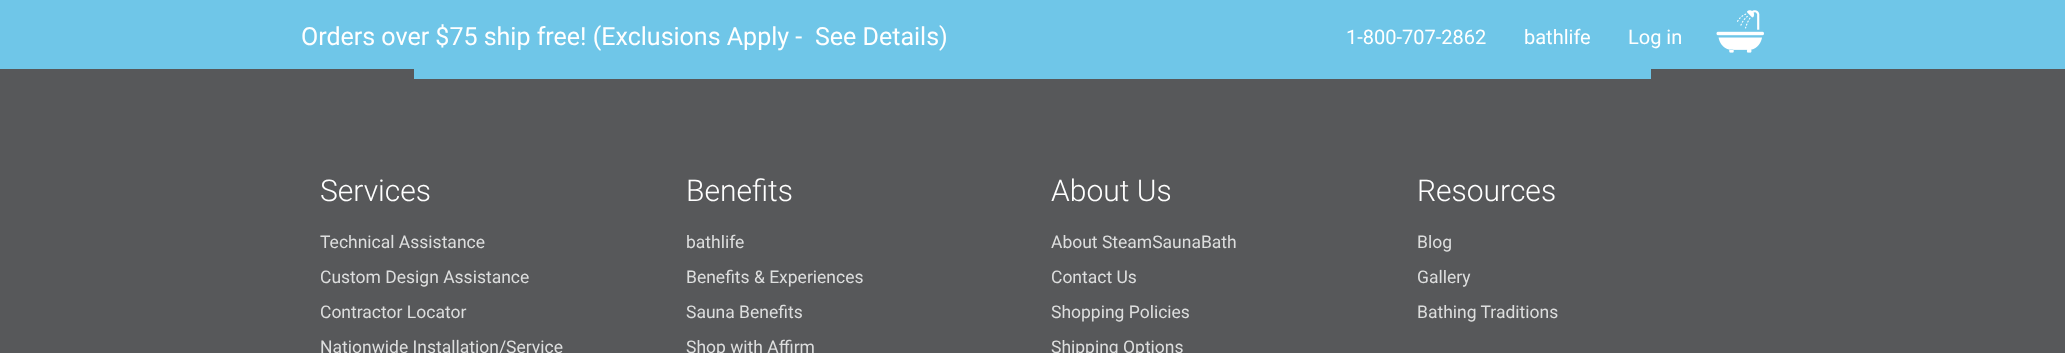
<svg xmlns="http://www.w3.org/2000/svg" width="2065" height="353">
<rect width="100%" height="100%" fill="#57585a"/>
<rect width="2065" height="69" fill="#6fc6e8"/>
<text x="301" y="45" style="font-family:Roboto;font-size:25px;fill:#fff">Orders over $75 ship free! (Exclusions Apply -</text>
<text x="815" y="45" style="font-family:Roboto;font-size:25px;fill:#fff">See Details)</text>
<image x="1716" y="10" width="48" height="43" href="media/1.png"/>
<text x="1346" y="44" style="font-family:Roboto;font-size:20px;fill:#fff">1-800-707-2862</text>
<text x="1524" y="44" style="font-family:Roboto;font-size:20px;fill:#fff">bathlife</text>
<text x="1628" y="44" style="font-family:Roboto;font-size:20px;fill:#fff">Log in</text>
<rect x="414" y="69" width="1237" height="10" fill="#6fc6e8"/>
<text x="320" y="201" style="font-family:Roboto;font-size:30px;font-weight:300;fill:#fff">Services</text>
<text x="320" y="248" style="font-family:Roboto;font-size:17.5px;fill:#dddede">Technical Assistance</text>
<text x="320" y="283" style="font-family:Roboto;font-size:17.5px;fill:#dddede">Custom Design Assistance</text>
<text x="320" y="318" style="font-family:Roboto;font-size:17.5px;fill:#dddede">Contractor Locator</text>
<text x="320" y="353" style="font-family:Roboto;font-size:17.5px;fill:#dddede">Nationwide Installation/Service</text>
<text x="686" y="201" style="font-family:Roboto;font-size:30px;font-weight:300;fill:#fff">Benefits</text>
<text x="686" y="248" style="font-family:Roboto;font-size:17.5px;fill:#dddede">bathlife</text>
<text x="686" y="283" style="font-family:Roboto;font-size:17.5px;fill:#dddede">Benefits &amp; Experiences</text>
<text x="686" y="318" style="font-family:Roboto;font-size:17.5px;fill:#dddede">Sauna Benefits</text>
<text x="686" y="353" style="font-family:Roboto;font-size:17.5px;fill:#dddede">Shop with Affirm</text>
<text x="1051" y="201" style="font-family:Roboto;font-size:30px;font-weight:300;fill:#fff">About Us</text>
<text x="1051" y="248" style="font-family:Roboto;font-size:17.5px;fill:#dddede">About SteamSaunaBath</text>
<text x="1051" y="283" style="font-family:Roboto;font-size:17.5px;fill:#dddede">Contact Us</text>
<text x="1051" y="318" style="font-family:Roboto;font-size:17.5px;fill:#dddede">Shopping Policies</text>
<text x="1051" y="353" style="font-family:Roboto;font-size:17.5px;fill:#dddede">Shipping Options</text>
<text x="1417" y="201" style="font-family:Roboto;font-size:30px;font-weight:300;fill:#fff">Resources</text>
<text x="1417" y="248" style="font-family:Roboto;font-size:17.5px;fill:#dddede">Blog</text>
<text x="1417" y="283" style="font-family:Roboto;font-size:17.5px;fill:#dddede">Gallery</text>
<text x="1417" y="318" style="font-family:Roboto;font-size:17.5px;fill:#dddede">Bathing Traditions</text>
</svg>
